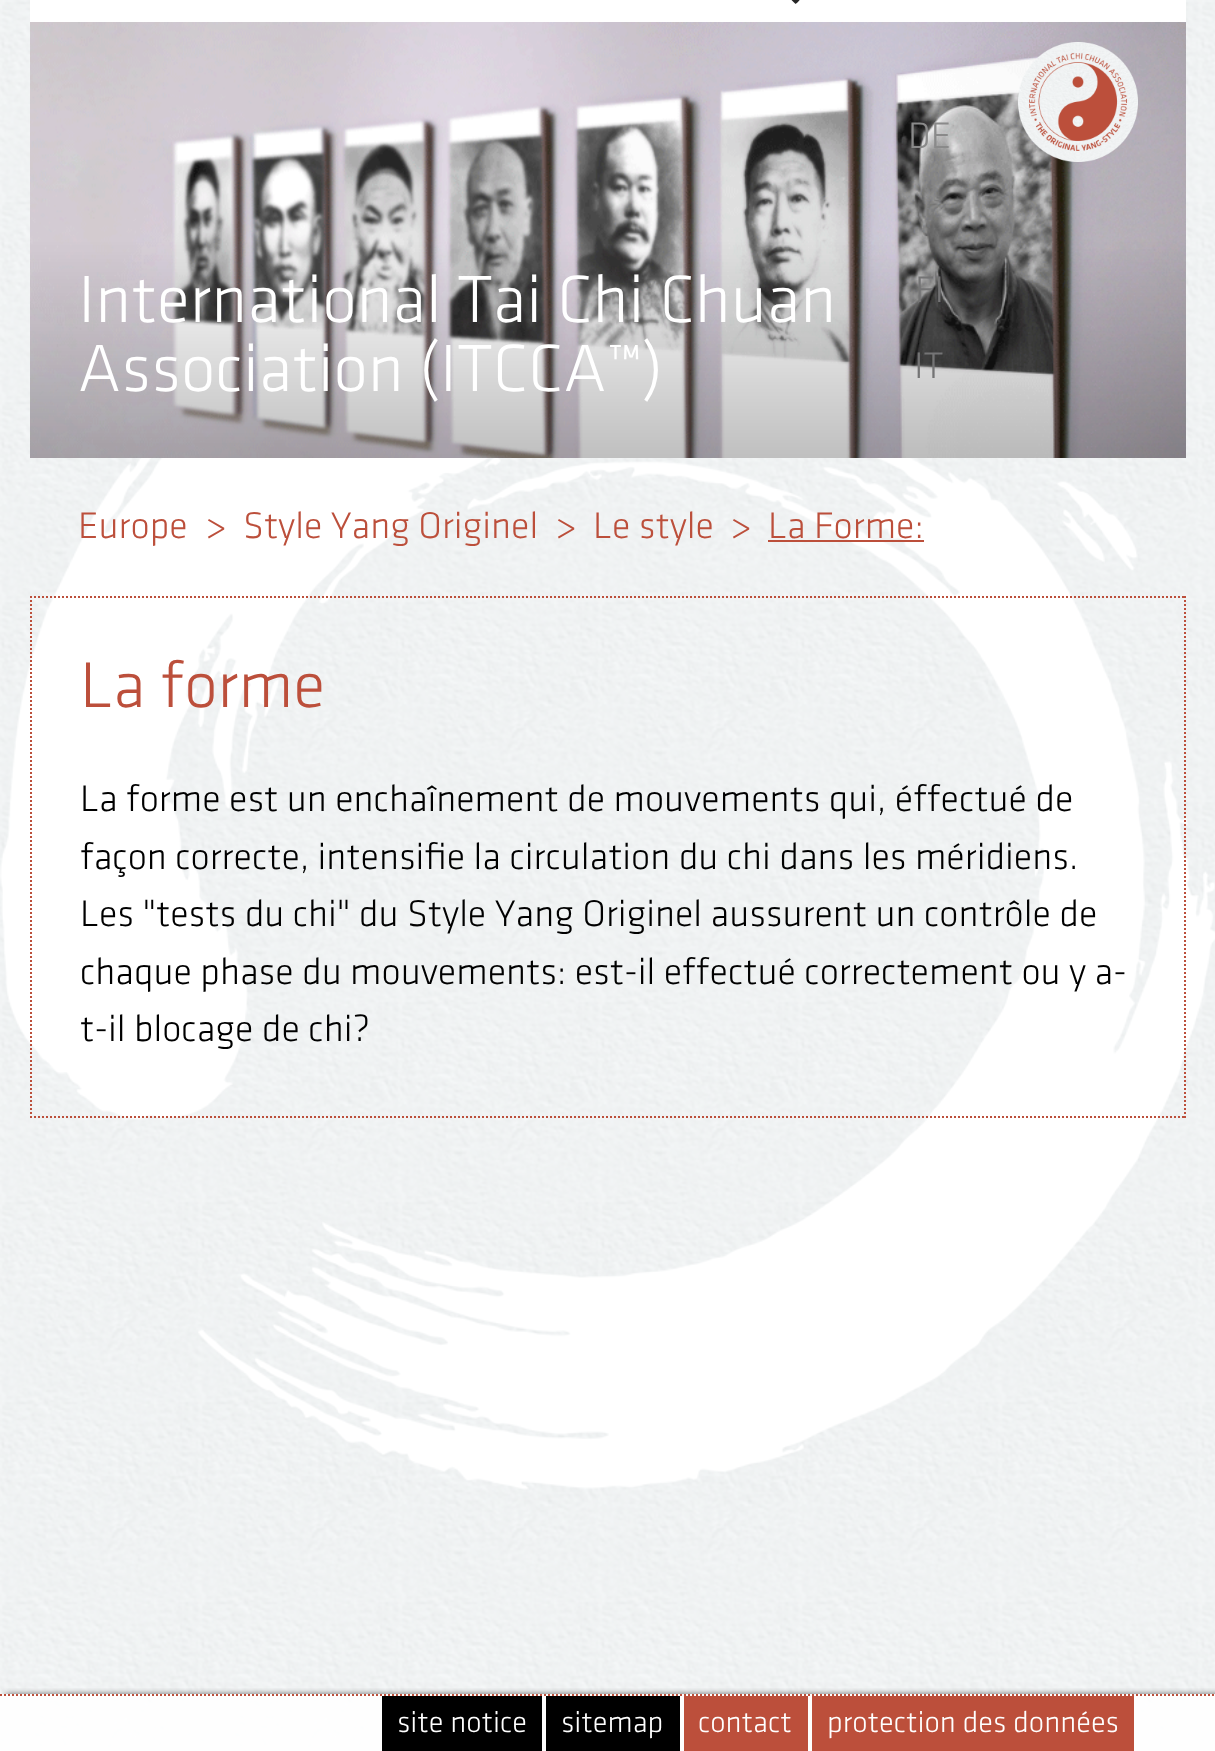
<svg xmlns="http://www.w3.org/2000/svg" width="1215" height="1751">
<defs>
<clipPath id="clip1"><rect x="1" y="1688" width="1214" height="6"/></clipPath>
</defs>
<rect width="100%" height="100%" fill="#fff"/>
<image x="0" y="0" width="1215" height="1751" href="media/1.png"/>
<rect x="30" width="1156" height="22" fill="#fff"/>
<path d="M785.5-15l-4.5 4.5l13 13c2 2 1.5 1.5 4-.5c2-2.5 2.5-2 .5-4z" fill="#262626" fill-rule="evenodd"/>
<image x="30" y="22" width="1156" height="436" href="media/2.png"/>
<text x="908" y="148" style="font-family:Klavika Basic;font-size:38.4px;font-weight:300;fill:#8a8a8a">DE</text>
<text x="915" y="302" style="font-family:Klavika Basic;font-size:38.4px;font-weight:300;fill:#747475">FI</text>
<text x="914" y="378" style="font-family:Klavika Basic;font-size:38.4px;font-weight:300;fill:#747475">IT</text>
<image x="1018" y="42" width="120" height="120" href="media/3.png"/>
<text x="78" y="322" style="font-family:Klavika Basic;font-size:69.1px;font-weight:300;fill:#fff">International Tai Chi Chuan</text>
<text x="78" y="391" style="font-family:Klavika Basic;font-size:69.1px;font-weight:300;fill:#fff">Association (ITCCA™)</text>
<text x="78" y="538" style="font-family:Klavika Basic;font-size:38.4px;font-weight:300;fill:#bc4f3b">Europe</text>
<text x="205" y="538" style="font-family:Klavika Basic;font-size:38.4px;font-weight:300;fill:#bc4f3b">&gt;</text>
<text x="243" y="538" style="font-family:Klavika Basic;font-size:38.4px;font-weight:300;fill:#bc4f3b">Style Yang Originel</text>
<text x="555" y="538" style="font-family:Klavika Basic;font-size:38.4px;font-weight:300;fill:#bc4f3b">&gt;</text>
<text x="593" y="538" style="font-family:Klavika Basic;font-size:38.4px;font-weight:300;fill:#bc4f3b">Le style</text>
<text x="730" y="538" style="font-family:Klavika Basic;font-size:38.4px;font-weight:300;fill:#bc4f3b">&gt;</text>
<text x="768" y="538" style="font-family:Klavika Basic;font-size:38.4px;font-weight:300;fill:#bc4f3b">La Forme:</text>
<rect x="768" y="540" width="156" height="2" fill="#bc4f3b"/>
<path d="M30 597h1156" fill="none" stroke="#bc4f3b" stroke-width="2" stroke-dasharray="2 2"/>
<path d="M1185 596v522" fill="none" stroke="#bc4f3b" stroke-width="2" stroke-dasharray="2 2"/>
<path d="M30 1117h1156" fill="none" stroke="#bc4f3b" stroke-width="2" stroke-dasharray="2 2"/>
<path d="M31 596v522" fill="none" stroke="#bc4f3b" stroke-width="2" stroke-dasharray="2 2"/>
<text x="80" y="707" style="font-family:Klavika Basic;font-size:67px;font-weight:300;fill:#bc4f3b">La forme</text>
<text x="80" y="811" style="font-family:Klavika Basic;font-size:38.4px;font-weight:300;fill:#000">La forme est un enchaînement de mouvements qui, éffectué de</text>
<text x="80" y="869" style="font-family:Klavika Basic;font-size:38.4px;font-weight:300;fill:#000">façon correcte, intensifie la circulation du chi dans les méridiens.</text>
<text x="80" y="926" style="font-family:Klavika Basic;font-size:38.4px;font-weight:300;fill:#000">Les "tests du chi" du Style Yang Originel aussurent un contrôle de</text>
<text x="80" y="984" style="font-family:Klavika Basic;font-size:38.4px;font-weight:300;fill:#000">chaque phase du mouvements: est-il effectué correctement ou y a-</text>
<text x="80" y="1041" style="font-family:Klavika Basic;font-size:38.4px;font-weight:300;fill:#000">t-il blocage de chi?</text>
<g clip-path="url(#clip1)">
<rect x="6" y="1694" width="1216" height="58" fill="#666" filter="blur(3px)"/>
</g>
<rect y="1694" width="1215" height="57" fill="#ffffffe6"/>
<path d="M0 1695h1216" fill="none" stroke="#bc4f3b" stroke-width="2" stroke-dasharray="2 2"/>
<rect x="382" y="1696" width="160" height="55" fill="#000"/>
<text x="397" y="1732" style="font-family:Klavika Basic;font-size:30.75px;font-weight:300;fill:#fff">site notice</text>
<rect x="546" y="1696" width="134" height="55" fill="#000"/>
<text x="561" y="1732" style="font-family:Klavika Basic;font-size:30.75px;font-weight:300;fill:#fff">sitemap</text>
<rect x="684" y="1696" width="124" height="55" fill="#bc4f3b"/>
<text x="698" y="1732" style="font-family:Klavika Basic;font-size:30.75px;font-weight:300;fill:#fff">contact</text>
<rect x="812" y="1696" width="322" height="55" fill="#bc4f3b"/>
<text x="827" y="1732" style="font-family:Klavika Basic;font-size:30.75px;font-weight:300;fill:#fff">protection des données</text>
</svg>
